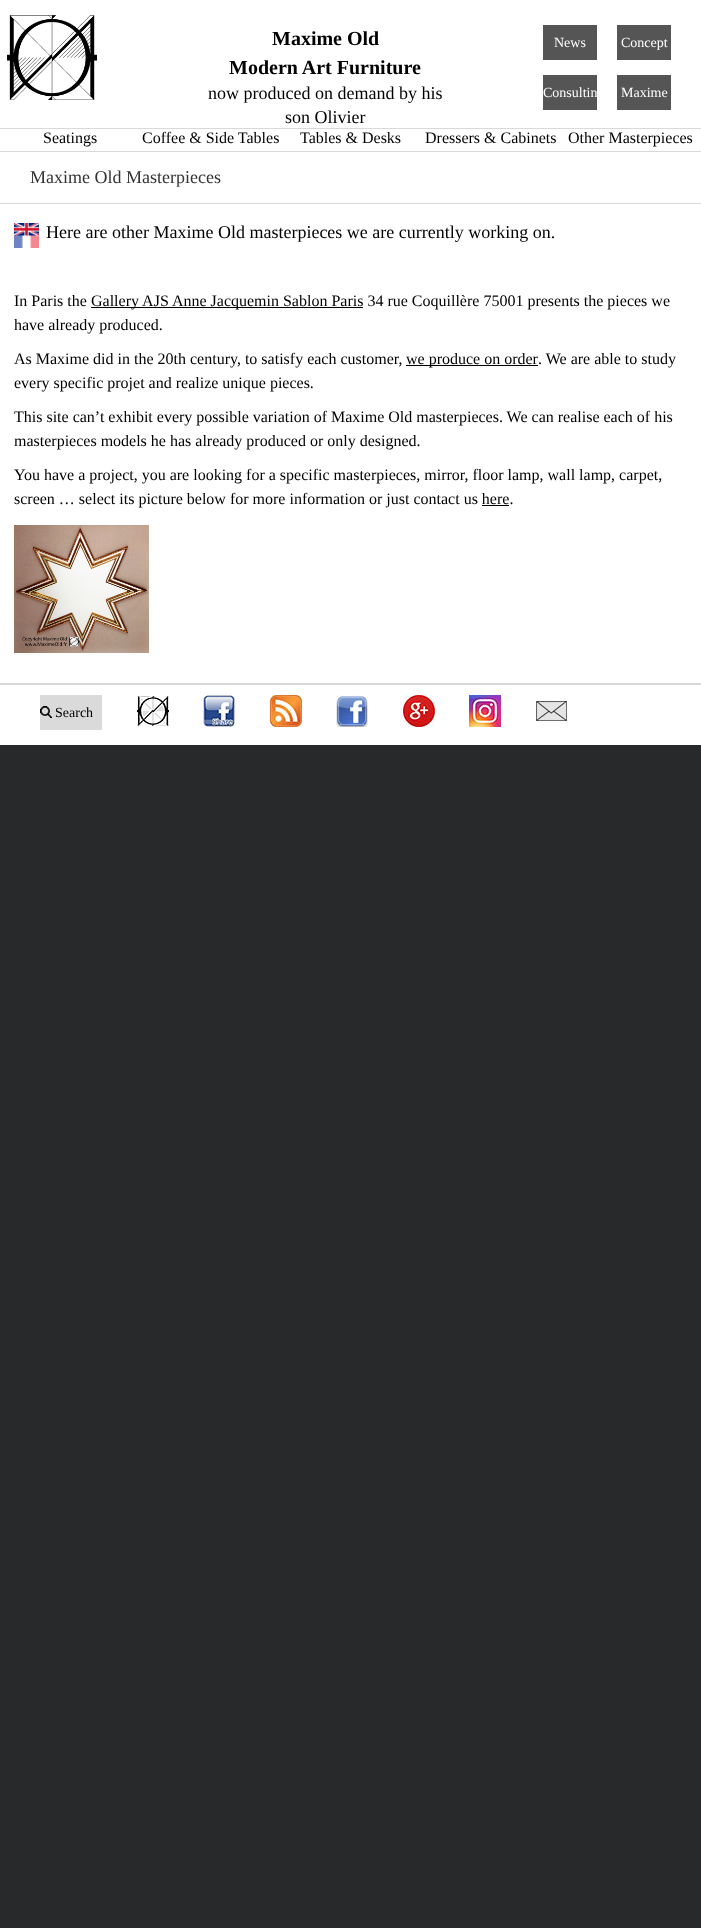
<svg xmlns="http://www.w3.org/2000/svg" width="701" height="1928">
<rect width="100%" height="100%" fill="#27292a"/>
<rect width="701" height="745" fill="#fff"/>
<image x="7" y="15" width="90" height="85" href="media/1.png"/>
<text x="272" y="45" style="font-family:Liberation Serif;font-size:20px;font-weight:bold;fill:#000">Maxime Old</text>
<text x="229" y="74" style="font-family:Liberation Serif;font-size:20px;font-weight:bold;fill:#000">Modern Art Furniture</text>
<text x="208" y="99" style="font-family:Liberation Serif;font-size:18px;fill:#000">now produced on demand by his</text>
<text x="285" y="123" style="font-family:Liberation Serif;font-size:18px;fill:#000">son Olivier</text>
<rect x="543" y="25" width="54" height="35" fill="#555"/>
<rect x="617" y="25" width="54" height="35" fill="#555"/>
<text x="554" y="47" style="font-family:Liberation Serif;font-size:14px;fill:#fff">News</text>
<text x="621" y="47" style="font-family:Liberation Serif;font-size:14px;fill:#fff">Concept</text>
<rect x="543" y="75" width="54" height="35" fill="#555"/>
<rect x="617" y="75" width="54" height="35" fill="#555"/>
<text x="543" y="97" style="font-family:Liberation Serif;font-size:14px;fill:#fff">Consultin</text>
<text x="621" y="97" style="font-family:Liberation Serif;font-size:14px;fill:#fff">Maxime</text>
<rect y="128" width="701" height="1" fill="#d9d9d9"/>
<rect y="151" width="701" height="1" fill="#d9d9d9"/>
<text x="43" y="143" style="font-family:Liberation Serif;font-size:16px;fill:#000">Seatings</text>
<text x="142" y="143" style="font-family:Liberation Serif;font-size:16px;fill:#000">Coffee &amp; Side Tables</text>
<text x="300" y="143" style="font-family:Liberation Serif;font-size:16px;fill:#000">Tables &amp; Desks</text>
<text x="425" y="143" style="font-family:Liberation Serif;font-size:16px;fill:#000">Dressers &amp; Cabinets</text>
<text x="568" y="143" style="font-family:Liberation Serif;font-size:16px;fill:#000">Other Masterpieces</text>
<rect y="203" width="701" height="1" fill="#d9d9d9"/>
<text x="30" y="183" style="font-family:Liberation Serif;font-size:18px;fill:#333">Maxime Old Masterpieces</text>
<image x="14" y="223" width="25" height="25" href="media/2.png"/>
<text x="46" y="238" style="font-family:Liberation Serif;font-size:18px;fill:#000">Here are other Maxime Old masterpieces we are currently working on.</text>
<text x="14" y="306" style="font-family:Liberation Serif;font-size:16px;fill:#000">In Paris the</text>
<rect x="91" y="307" width="272" height="1" fill="#000"/>
<text x="91" y="306" style="font-family:Liberation Serif;font-size:16px;fill:#000">Gallery AJS Anne Jacquemin Sablon Paris 34 rue Coquillère 75001 presents the pieces we</text>
<text x="14" y="330" style="font-family:Liberation Serif;font-size:16px;fill:#000">have already produced.</text>
<text x="14" y="364" style="font-family:Liberation Serif;font-size:16px;fill:#000">As Maxime did in the 20th century, to satisfy each customer,</text>
<rect x="406" y="365" width="132" height="1" fill="#000"/>
<text x="406" y="364" style="font-family:Liberation Serif;font-size:16px;fill:#000">we produce on order</text>
<text x="538" y="364" style="font-family:Liberation Serif;font-size:16px;fill:#000">. We are able to study</text>
<text x="14" y="388" style="font-family:Liberation Serif;font-size:16px;fill:#000">every specific projet and realize unique pieces.</text>
<text x="14" y="422" style="font-family:Liberation Serif;font-size:16px;fill:#000">This site can’t exhibit every possible variation of Maxime Old masterpieces. We can realise each of his</text>
<text x="14" y="446" style="font-family:Liberation Serif;font-size:16px;fill:#000">masterpieces models he has already produced or only designed.</text>
<text x="14" y="480" style="font-family:Liberation Serif;font-size:16px;fill:#000">You have a project, you are looking for a specific masterpieces, mirror, floor lamp, wall lamp, carpet,</text>
<text x="14" y="504" style="font-family:Liberation Serif;font-size:16px;fill:#000">screen … select its picture below for more information or just contact us here.</text>
<rect x="482" y="505" width="27" height="1" fill="#000"/>
<image x="14" y="525" width="135" height="128" href="media/3.png"/>
<rect y="683" width="701" height="2" fill="#d9d9d9"/>
<rect x="40" y="695" width="62" height="35" fill="#dadada"/>
<image x="40" y="706" width="12" height="12" href="media/4.png"/>
<text x="55" y="717" style="font-family:Liberation Serif;font-size:14px;fill:#000">Search</text>
<image x="137" y="695" width="32" height="32" href="media/5.png"/>
<image x="203" y="695" width="32" height="32" href="media/6.png"/>
<image x="270" y="695" width="32" height="32" href="media/7.png"/>
<image x="336" y="695" width="32" height="32" href="media/8.png"/>
<image x="403" y="695" width="32" height="32" href="media/9.png"/>
<image x="469" y="695" width="32" height="32" href="media/10.png"/>
<image x="536" y="698" width="32" height="29" href="media/11.png"/>
</svg>
